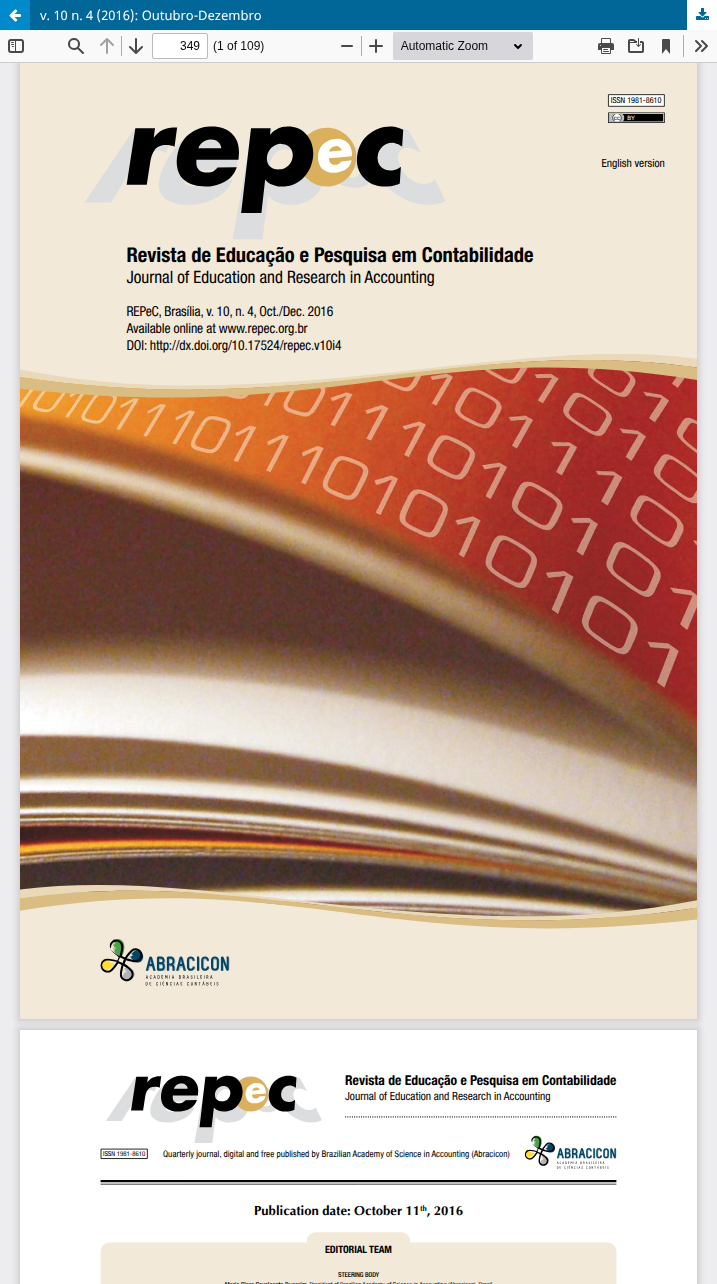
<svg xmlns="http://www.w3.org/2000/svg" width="717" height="1284">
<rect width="100%" height="100%" fill="#fff"/>
<rect x="30" width="657" height="30" fill="#006798"/>
<rect width="30" height="30" fill="#008acb"/>
<image x="9" y="9" width="12" height="13" href="media/1.png"/>
<text x="40" y="20" style="font-family:Noto Sans;font-size:13px;fill:#fff">v. 10 n. 4 (2016): Outubro-Dezembro</text>
<image x="696" y="8" width="13" height="12" href="media/2.png"/>
<image x="0" y="30" width="717" height="1254" href="media/3.png"/>
</svg>
